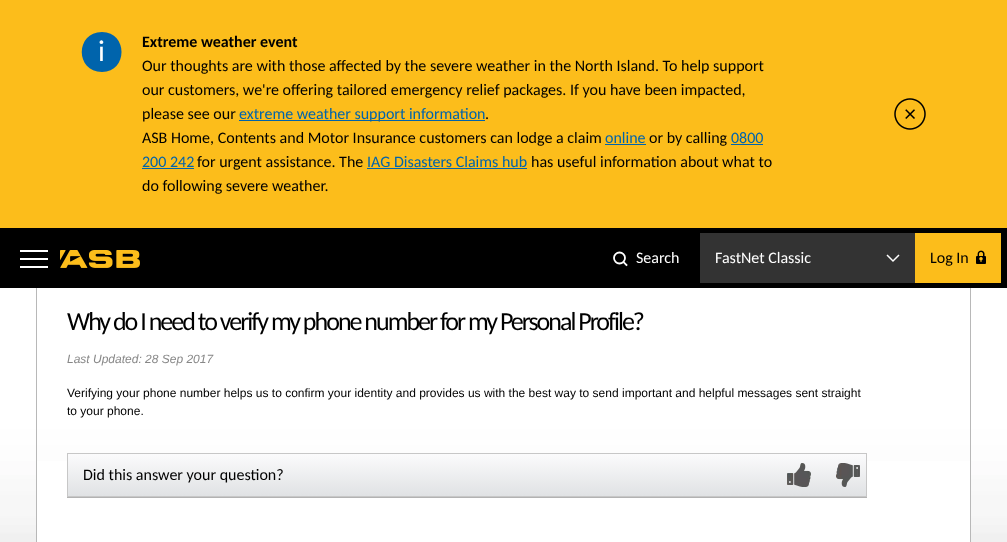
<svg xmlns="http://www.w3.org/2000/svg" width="1007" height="542">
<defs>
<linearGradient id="g1" gradientUnits="userSpaceOnUse" x1="467" y1="454" x2="467" y2="496"><stop offset="0" stop-color="#fbfbfc"/><stop offset="1" stop-color="#e0e2e4"/></linearGradient>
</defs>
<rect width="100%" height="100%" fill="#fcbd1b"/>
<path d="M102 72c26 0 26-40 0-40c-27 0-27 40 0 40z" fill="#0064ac" fill-rule="evenodd"/>
<text x="98" y="61" style="font-family:Carlito;font-size:30px;fill:#fff">i</text>
<text x="142" y="47" style="font-family:Carlito;font-size:16px;font-weight:bold;fill:#000">Extreme weather event</text>
<text x="142" y="71" style="font-family:Carlito;font-size:16px;fill:#000">Our thoughts are with those affected by the severe weather in the North Island. To help support</text>
<text x="142" y="95" style="font-family:Carlito;font-size:16px;fill:#000">our customers, we're offering tailored emergency relief packages. If you have been impacted,</text>
<text x="142" y="119" style="font-family:Carlito;font-size:16px;fill:#000">please see our</text>
<rect x="239" y="120" width="246" height="1" fill="#0064ac"/>
<text x="239" y="119" style="font-family:Carlito;font-size:16px;fill:#0064ac">extreme weather support information</text>
<text x="485" y="119" style="font-family:Carlito;font-size:16px;fill:#000">.</text>
<text x="142" y="143" style="font-family:Carlito;font-size:16px;fill:#000">ASB Home, Contents and Motor Insurance customers can lodge a claim</text>
<text x="605" y="143" style="font-family:Carlito;font-size:16px;fill:#0064ac">online</text>
<rect x="605" y="144" width="41" height="1" fill="#0064ac"/>
<text x="649" y="143" style="font-family:Carlito;font-size:16px;fill:#000">or by calling</text>
<text x="731" y="143" style="font-family:Carlito;font-size:16px;fill:#0064ac">0800</text>
<rect x="731" y="144" width="32" height="1" fill="#0064ac"/>
<text x="142" y="167" style="font-family:Carlito;font-size:16px;fill:#0064ac">200 242</text>
<rect x="142" y="168" width="52" height="1" fill="#0064ac"/>
<text x="197" y="167" style="font-family:Carlito;font-size:16px;fill:#000">for urgent assistance. The</text>
<text x="367" y="167" style="font-family:Carlito;font-size:16px;fill:#0064ac">IAG Disasters Claims hub</text>
<rect x="367" y="168" width="160" height="1" fill="#0064ac"/>
<text x="531" y="167" style="font-family:Carlito;font-size:16px;fill:#000">has useful information about what to</text>
<text x="142" y="191" style="font-family:Carlito;font-size:16px;fill:#000">do following severe weather.</text>
<image x="894" y="98" width="32" height="32" href="media/1.png"/>
<rect y="228" width="1007" height="60" fill="#000"/>
<rect x="20" y="258" width="28" height="2" fill="#fff"/>
<rect x="20" y="250" width="28" height="2" fill="#fff"/>
<rect x="20" y="266" width="28" height="2" fill="#fff"/>
<image x="60" y="250" width="80" height="18" href="media/2.png"/>
<circle cx="619.5" cy="258" r="5.5" fill="none" stroke="#fff" stroke-width="1.8"/>
<text x="636" y="263" style="font-family:Carlito;font-size:16px;fill:#fff">Search</text>
<path d="M626.5 265l-2.5-2.5" fill="none" stroke="#fff" stroke-width="1.8" stroke-linecap="square"/>
<rect x="700" y="233" width="215" height="50" fill="#333"/>
<text x="715" y="263" style="font-family:Carlito;font-size:16px;fill:#fff">FastNet Classic</text>
<path d="M899 255l-6 6l-6-6" fill="none" stroke="#fff" stroke-width="1.5"/>
<rect x="915" y="233" width="86" height="50" fill="#fcbd1b"/>
<text x="930" y="263" style="font-family:Carlito;font-size:16px;fill:#000">Log In</text>
<image x="976" y="250" width="10" height="14" href="media/3.png"/>
<image x="0" y="288" width="1007" height="254" href="media/4.png"/>
<rect x="37" y="461" width="933" height="81" fill="#fff"/>
<rect x="970" y="288" width="1" height="254" fill="#b8b8b8"/>
<rect x="36" y="288" width="1" height="254" fill="#b8b8b8"/>
<text x="67" y="330" style="font-family:Carlito;font-size:26px;letter-spacing:-2px;fill:#000">Why do I need to verify my phone number for my Personal Profile?</text>
<text x="67" y="363" style="font-family:Liberation Sans;font-size:12px;font-style:italic;fill:#878787">Last Updated: 28 Sep 2017</text>
<text x="67" y="397" style="font-family:Liberation Sans;font-size:12px;fill:#000">Verifying your phone number helps us to confirm your identity and provides us with the best way to send important and helpful messages sent straight</text>
<text x="67" y="415" style="font-family:Liberation Sans;font-size:12px;fill:#000">to your phone.</text>
<rect x="67" y="454" width="800" height="44" fill="#b2b2b2" filter="blur(0.5px)"/>
<rect x="68" y="454" width="798" height="42" fill="url(#g1)"/>
<rect x="67.5" y="453.5" width="799" height="43" fill="none" stroke="#c7c7c7"/>
<text x="83" y="480" style="font-family:Carlito;font-size:16px;fill:#000">Did this answer your question?</text>
<image x="787" y="463" width="24" height="24" href="media/5.png"/>
<image x="836" y="463" width="24" height="24" href="media/6.png"/>
</svg>
